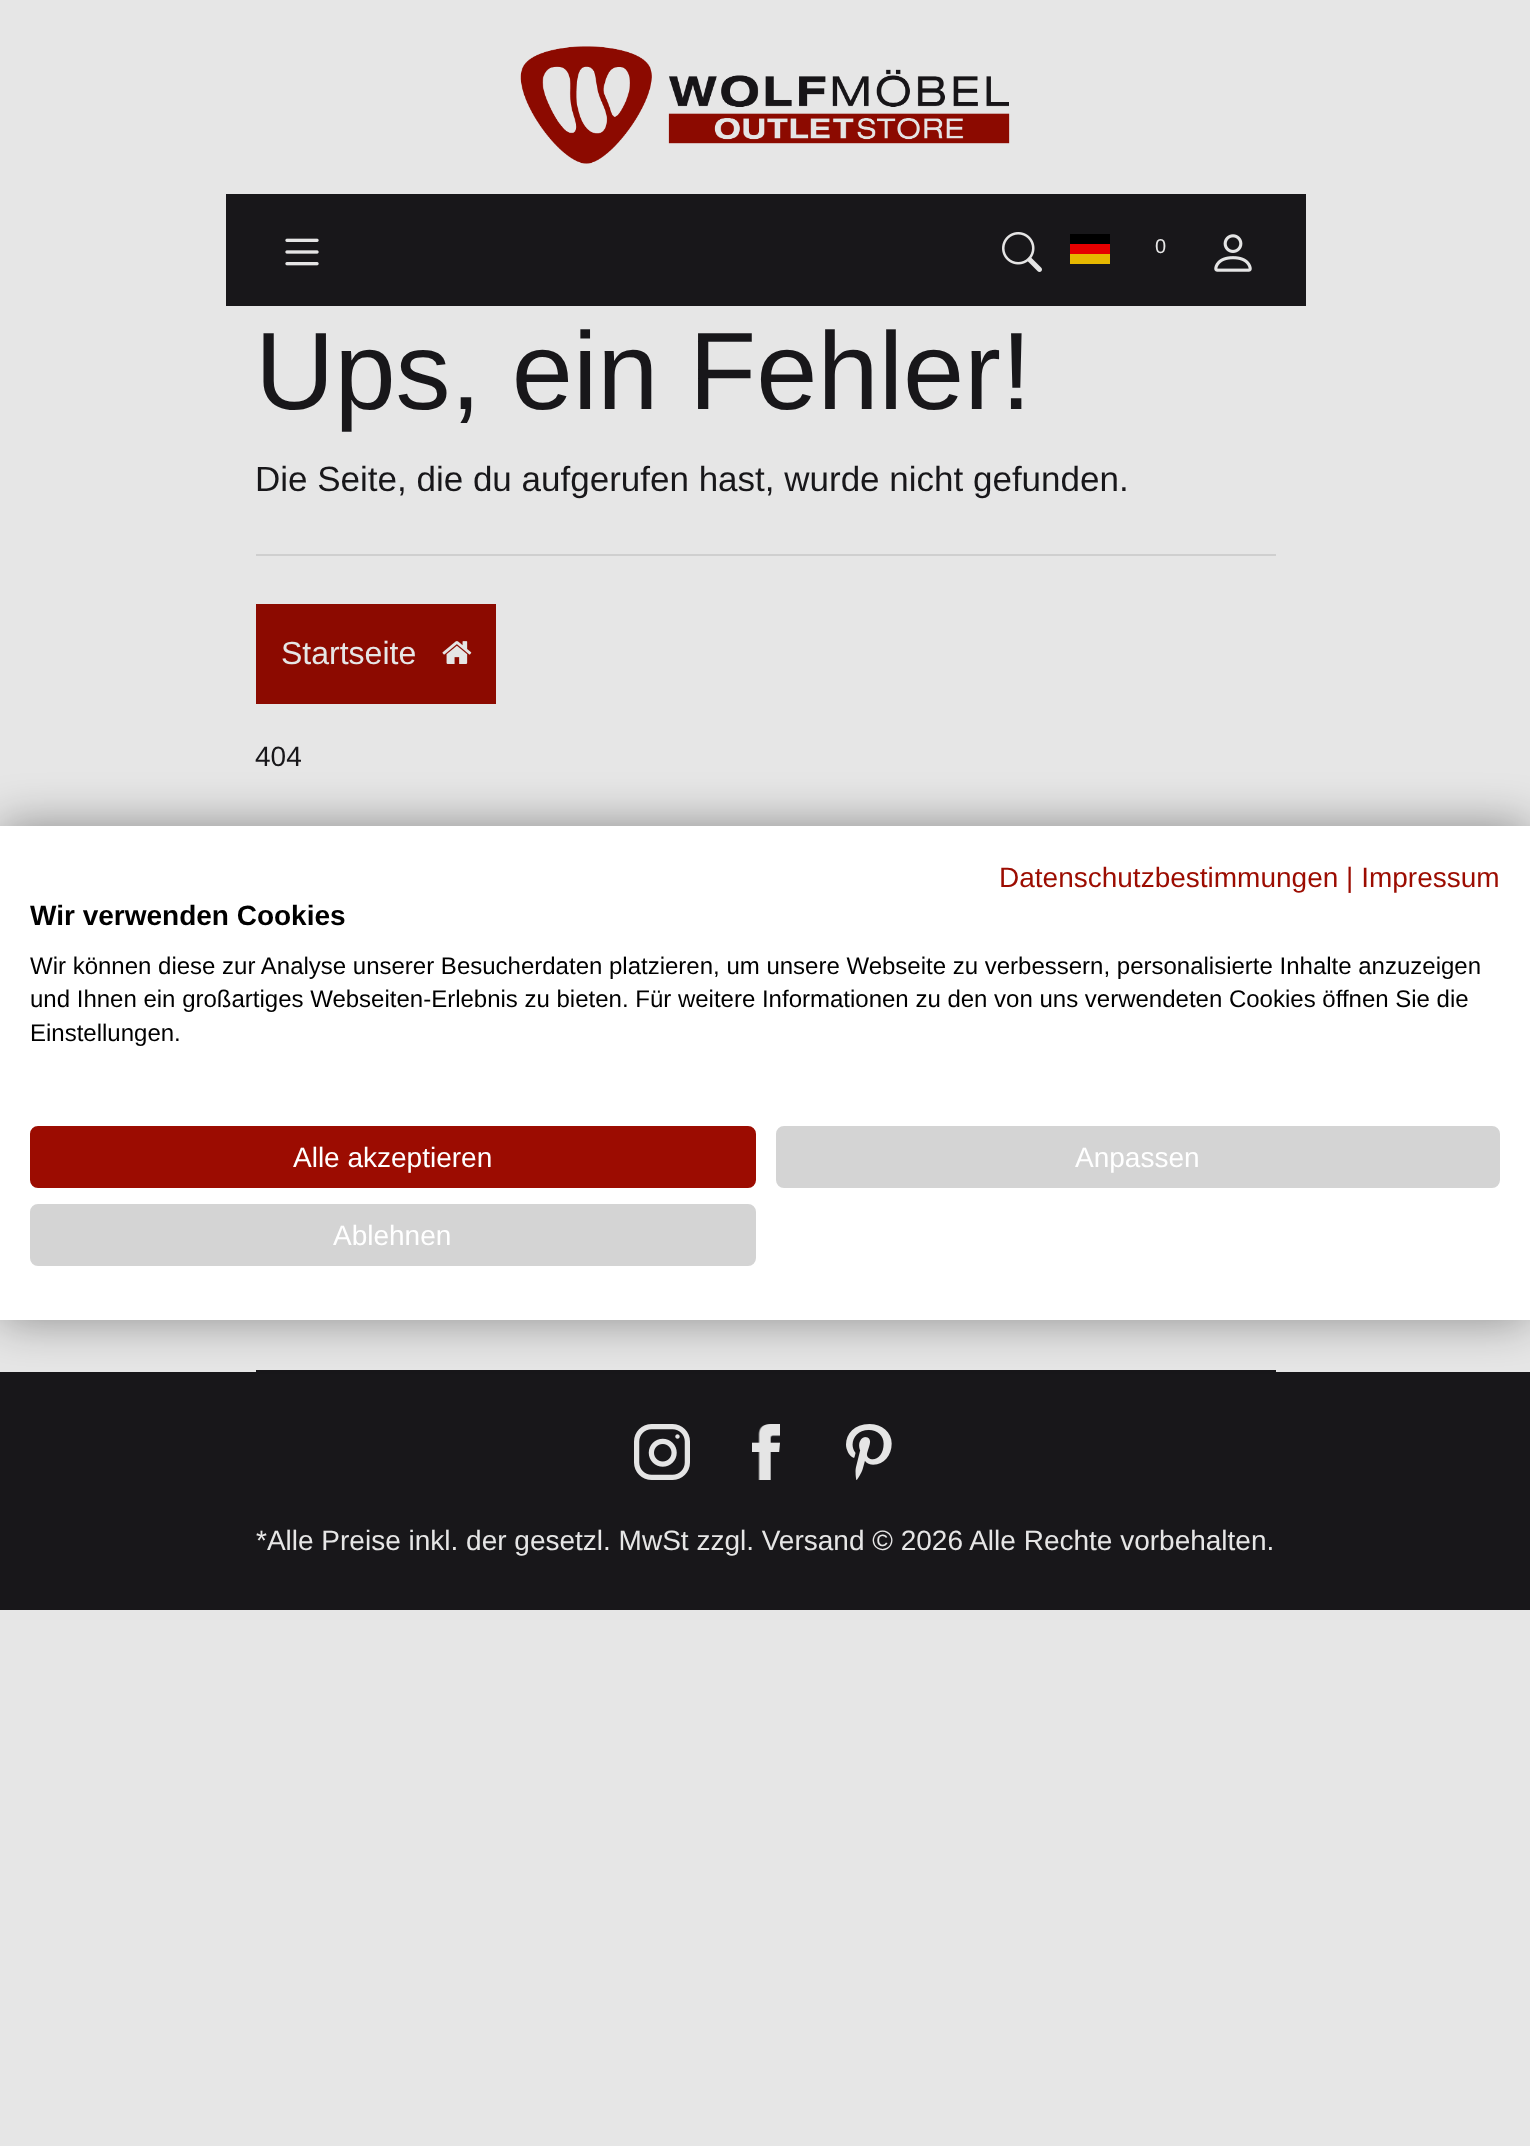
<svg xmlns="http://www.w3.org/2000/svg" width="1530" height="2146">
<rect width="100%" height="100%" fill="#e6e6e6"/>
<image x="520" y="46" width="490" height="118" href="media/1.png"/>
<rect x="226" y="194" width="1080" height="112" fill="#18171a"/>
<image x="285" y="238" width="34" height="28" href="media/2.png"/>
<image x="1002" y="232" width="40" height="40" href="media/3.png"/>
<rect x="1070" y="254" width="40" height="10" fill="#e6b800"/>
<rect x="1070" y="234" width="40" height="10" fill="#000"/>
<rect x="1070" y="244" width="40" height="10" fill="#e60000"/>
<text x="1155" y="253" style="font-family:Liberation Sans;font-size:20px;fill:#e6e6e6">0</text>
<image x="1214" y="234" width="38" height="38" href="media/4.png"/>
<text x="255" y="409" style="font-family:Liberation Sans;font-size:110px;fill:#18171a">Ups, ein Fehler!</text>
<text x="255" y="491" style="font-family:Liberation Sans;font-size:35px;fill:#18171a">Die Seite, die du aufgerufen hast, wurde nicht gefunden.</text>
<rect x="256" y="554" width="1020" height="2" fill="#cfcfcf"/>
<rect x="256" y="604" width="240" height="100" fill="#8c0a00"/>
<text x="281" y="664" style="font-family:Liberation Sans;font-size:32px;fill:#e6e6e6">Startseite</text>
<image x="442" y="641" width="30" height="23" href="media/5.png"/>
<text x="255" y="766" style="font-family:Liberation Sans;font-size:28px;fill:#18171a">404</text>
<rect x="256" y="1370" width="1020" height="2" fill="#18171a"/>
<rect y="1372" width="1530" height="238" fill="#18171a"/>
<image x="634" y="1424" width="56" height="56" href="media/6.png"/>
<image x="752" y="1424" width="28" height="56" href="media/7.png"/>
<image x="846" y="1424" width="46" height="56" href="media/8.png"/>
<text x="256" y="1550" style="font-family:Liberation Sans;font-size:28px;fill:#e6e6e6">*Alle Preise inkl. der gesetzl. MwSt zzgl. Versand © 2026 Alle Rechte vorbehalten.</text>
<rect y="826" width="1530" height="494" fill="#00000066" filter="blur(24px)"/>
<rect y="826" width="1530" height="494" fill="#fff"/>
<text x="999" y="887" style="font-family:Liberation Sans;font-size:28px;fill:#9c0c01">Datenschutzbestimmungen | Impressum</text>
<text x="30" y="925" style="font-family:Liberation Sans;font-size:28px;font-weight:bold;fill:#000">Wir verwenden Cookies</text>
<text x="30" y="974" style="font-family:Liberation Sans;font-size:24px;fill:#000">Wir können diese zur Analyse unserer Besucherdaten platzieren, um unsere Webseite zu verbessern, personalisierte Inhalte anzuzeigen</text>
<text x="30" y="1007" style="font-family:Liberation Sans;font-size:24px;fill:#000">und Ihnen ein großartiges Webseiten-Erlebnis zu bieten. Für weitere Informationen zu den von uns verwendeten Cookies öffnen Sie die</text>
<text x="30" y="1041" style="font-family:Liberation Sans;font-size:24px;fill:#000">Einstellungen.</text>
<rect x="31" y="1127" width="724" height="60" rx="7" fill="#9c0c01" stroke="#9c0c01" stroke-width="2"/>
<text x="293" y="1167" style="font-family:Liberation Sans;font-size:28px;fill:#fff">Alle akzeptieren</text>
<rect x="777" y="1127" width="722" height="60" rx="7" fill="#d4d4d4" stroke="#d4d4d4" stroke-width="2"/>
<text x="1075" y="1167" style="font-family:Liberation Sans;font-size:28px;fill:#fff">Anpassen</text>
<rect x="31" y="1205" width="724" height="60" rx="7" fill="#d4d4d4" stroke="#d4d4d4" stroke-width="2"/>
<text x="333" y="1245" style="font-family:Liberation Sans;font-size:28px;fill:#fff">Ablehnen</text>
</svg>
